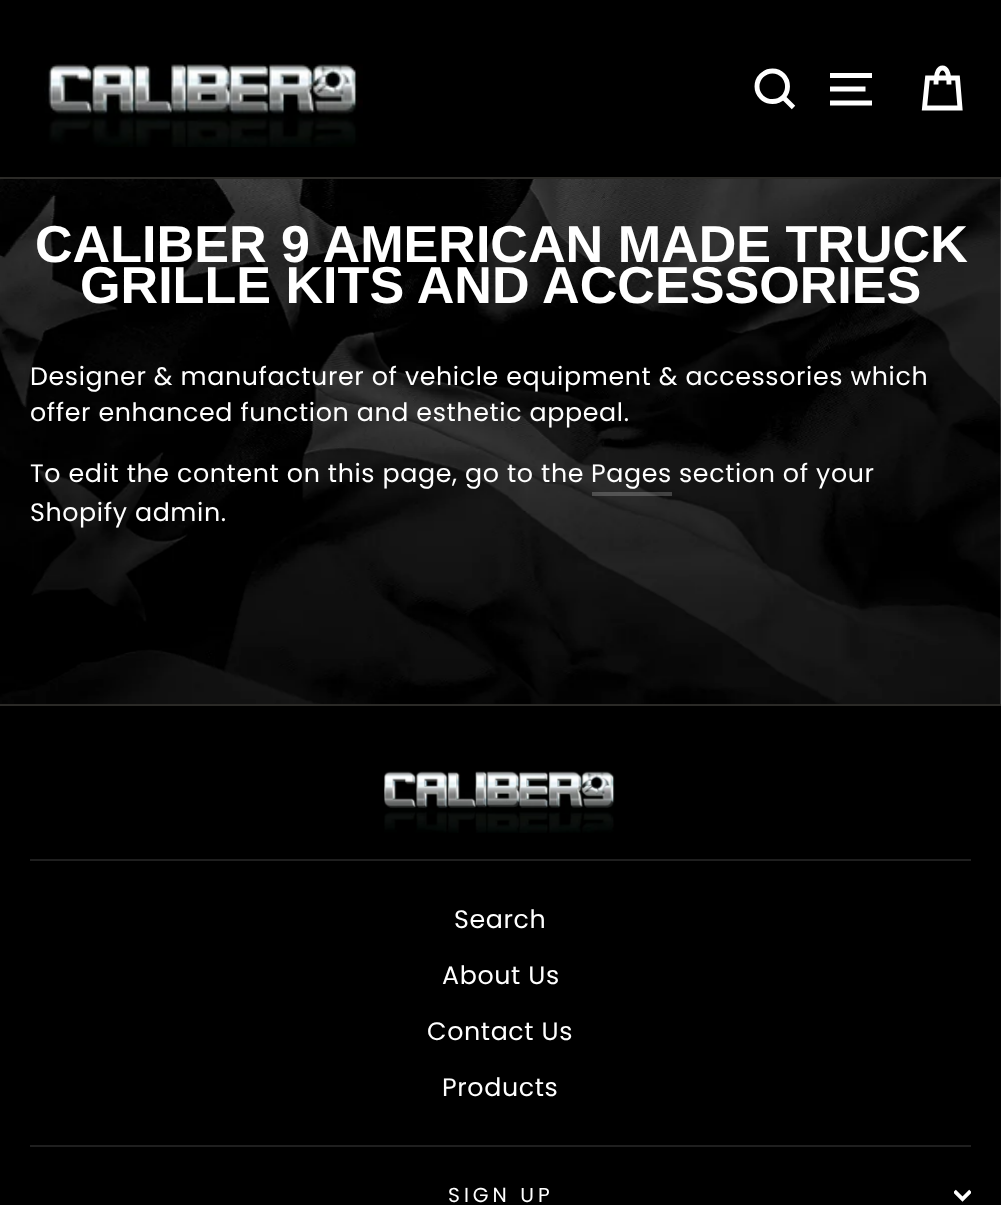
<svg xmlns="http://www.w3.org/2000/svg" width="1001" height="1205">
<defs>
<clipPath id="clip1"><rect x="954" y="1187" width="17" height="17"/></clipPath>
</defs>
<rect width="100%" height="100%" fill="#fff"/>
<image x="0" y="179" width="1001" height="525" href="media/1.png"/>
<rect width="1001" height="177" fill="#000"/>
<rect y="177" width="1001" height="2" fill="#2b2a27"/>
<image x="44" y="64" width="319" height="83" href="media/2.png"/>
<path d="M787.5 86.5c0 8.5-6.5 15-15 15c-8.5 0-15.5-6.5-15.5-15c0-8.5 7-15.5 15.5-15.5c8.5 0 15 7 15 15.5zm6 21l-10-10" fill="none" stroke="#fff" stroke-width="4.9"/>
<path d="M830 75.5h42m-42 13.5h35.5m-35.5 14h42" fill="none" stroke="#fff" stroke-width="4.9"/>
<path d="M936 84.5c0-13 2.5-16.5 6.5-16.5c3.5 0 6.5 3.5 6.5 16.5m-21.5-6.5h30l2.5 30h-35.5z" fill="none" stroke="#fff" stroke-width="4.9"/>
<text x="35" y="262" style="font-family:Liberation Sans;font-size:52.1px;font-weight:bold;fill:#fff">CALIBER 9 AMERICAN MADE TRUCK</text>
<text x="80" y="303" style="font-family:Liberation Sans;font-size:52.1px;font-weight:bold;fill:#fff">GRILLE KITS AND ACCESSORIES</text>
<text x="30" y="385" style="font-family:Poppins;font-size:25.3px;letter-spacing:0.63px;fill:#fff">Designer &amp; manufacturer of vehicle equipment &amp; accessories which</text>
<text x="30" y="421" style="font-family:Poppins;font-size:25.3px;letter-spacing:0.63px;fill:#fff">offer enhanced function and esthetic appeal.</text>
<text x="30" y="482" style="font-family:Poppins;font-size:25.3px;letter-spacing:0.63px;fill:#fff">To edit the content on this page, go to the</text>
<rect x="592" y="492" width="80" height="4" fill="#ffffff33"/>
<text x="591" y="482" style="font-family:Poppins;font-size:25.3px;letter-spacing:0.63px;fill:#fff">Pages</text>
<text x="679" y="482" style="font-family:Poppins;font-size:25.3px;letter-spacing:0.63px;fill:#fff">section of your</text>
<text x="30" y="521" style="font-family:Poppins;font-size:25.3px;letter-spacing:0.63px;fill:#fff">Shopify admin.</text>
<rect y="706" width="1001" height="499" fill="#000"/>
<rect y="704" width="1001" height="2" fill="#2b2a27"/>
<image x="384" y="771" width="231" height="62" href="media/3.png"/>
<rect x="30" y="859" width="941" height="2" fill="#1f1f1f"/>
<text x="454" y="928" style="font-family:Poppins;font-size:25.3px;letter-spacing:0.63px;fill:#fff">Search</text>
<text x="442" y="984" style="font-family:Poppins;font-size:25.3px;letter-spacing:0.63px;fill:#fff">About Us</text>
<text x="427" y="1040" style="font-family:Poppins;font-size:25.3px;letter-spacing:0.63px;fill:#fff">Contact Us</text>
<text x="442" y="1096" style="font-family:Poppins;font-size:25.3px;letter-spacing:0.63px;fill:#fff">Products</text>
<rect x="30" y="1145" width="941" height="2" fill="#1f1f1f"/>
<text x="448" y="1202" style="font-family:Poppins;font-size:20.25px;letter-spacing:4px;fill:#fff">SIGN UP</text>
<g clip-path="url(#clip1)">
<path d="M954.5 1191l8 8l8-8" fill="none" stroke="#fff" stroke-width="3.8"/>
</g>
</svg>
